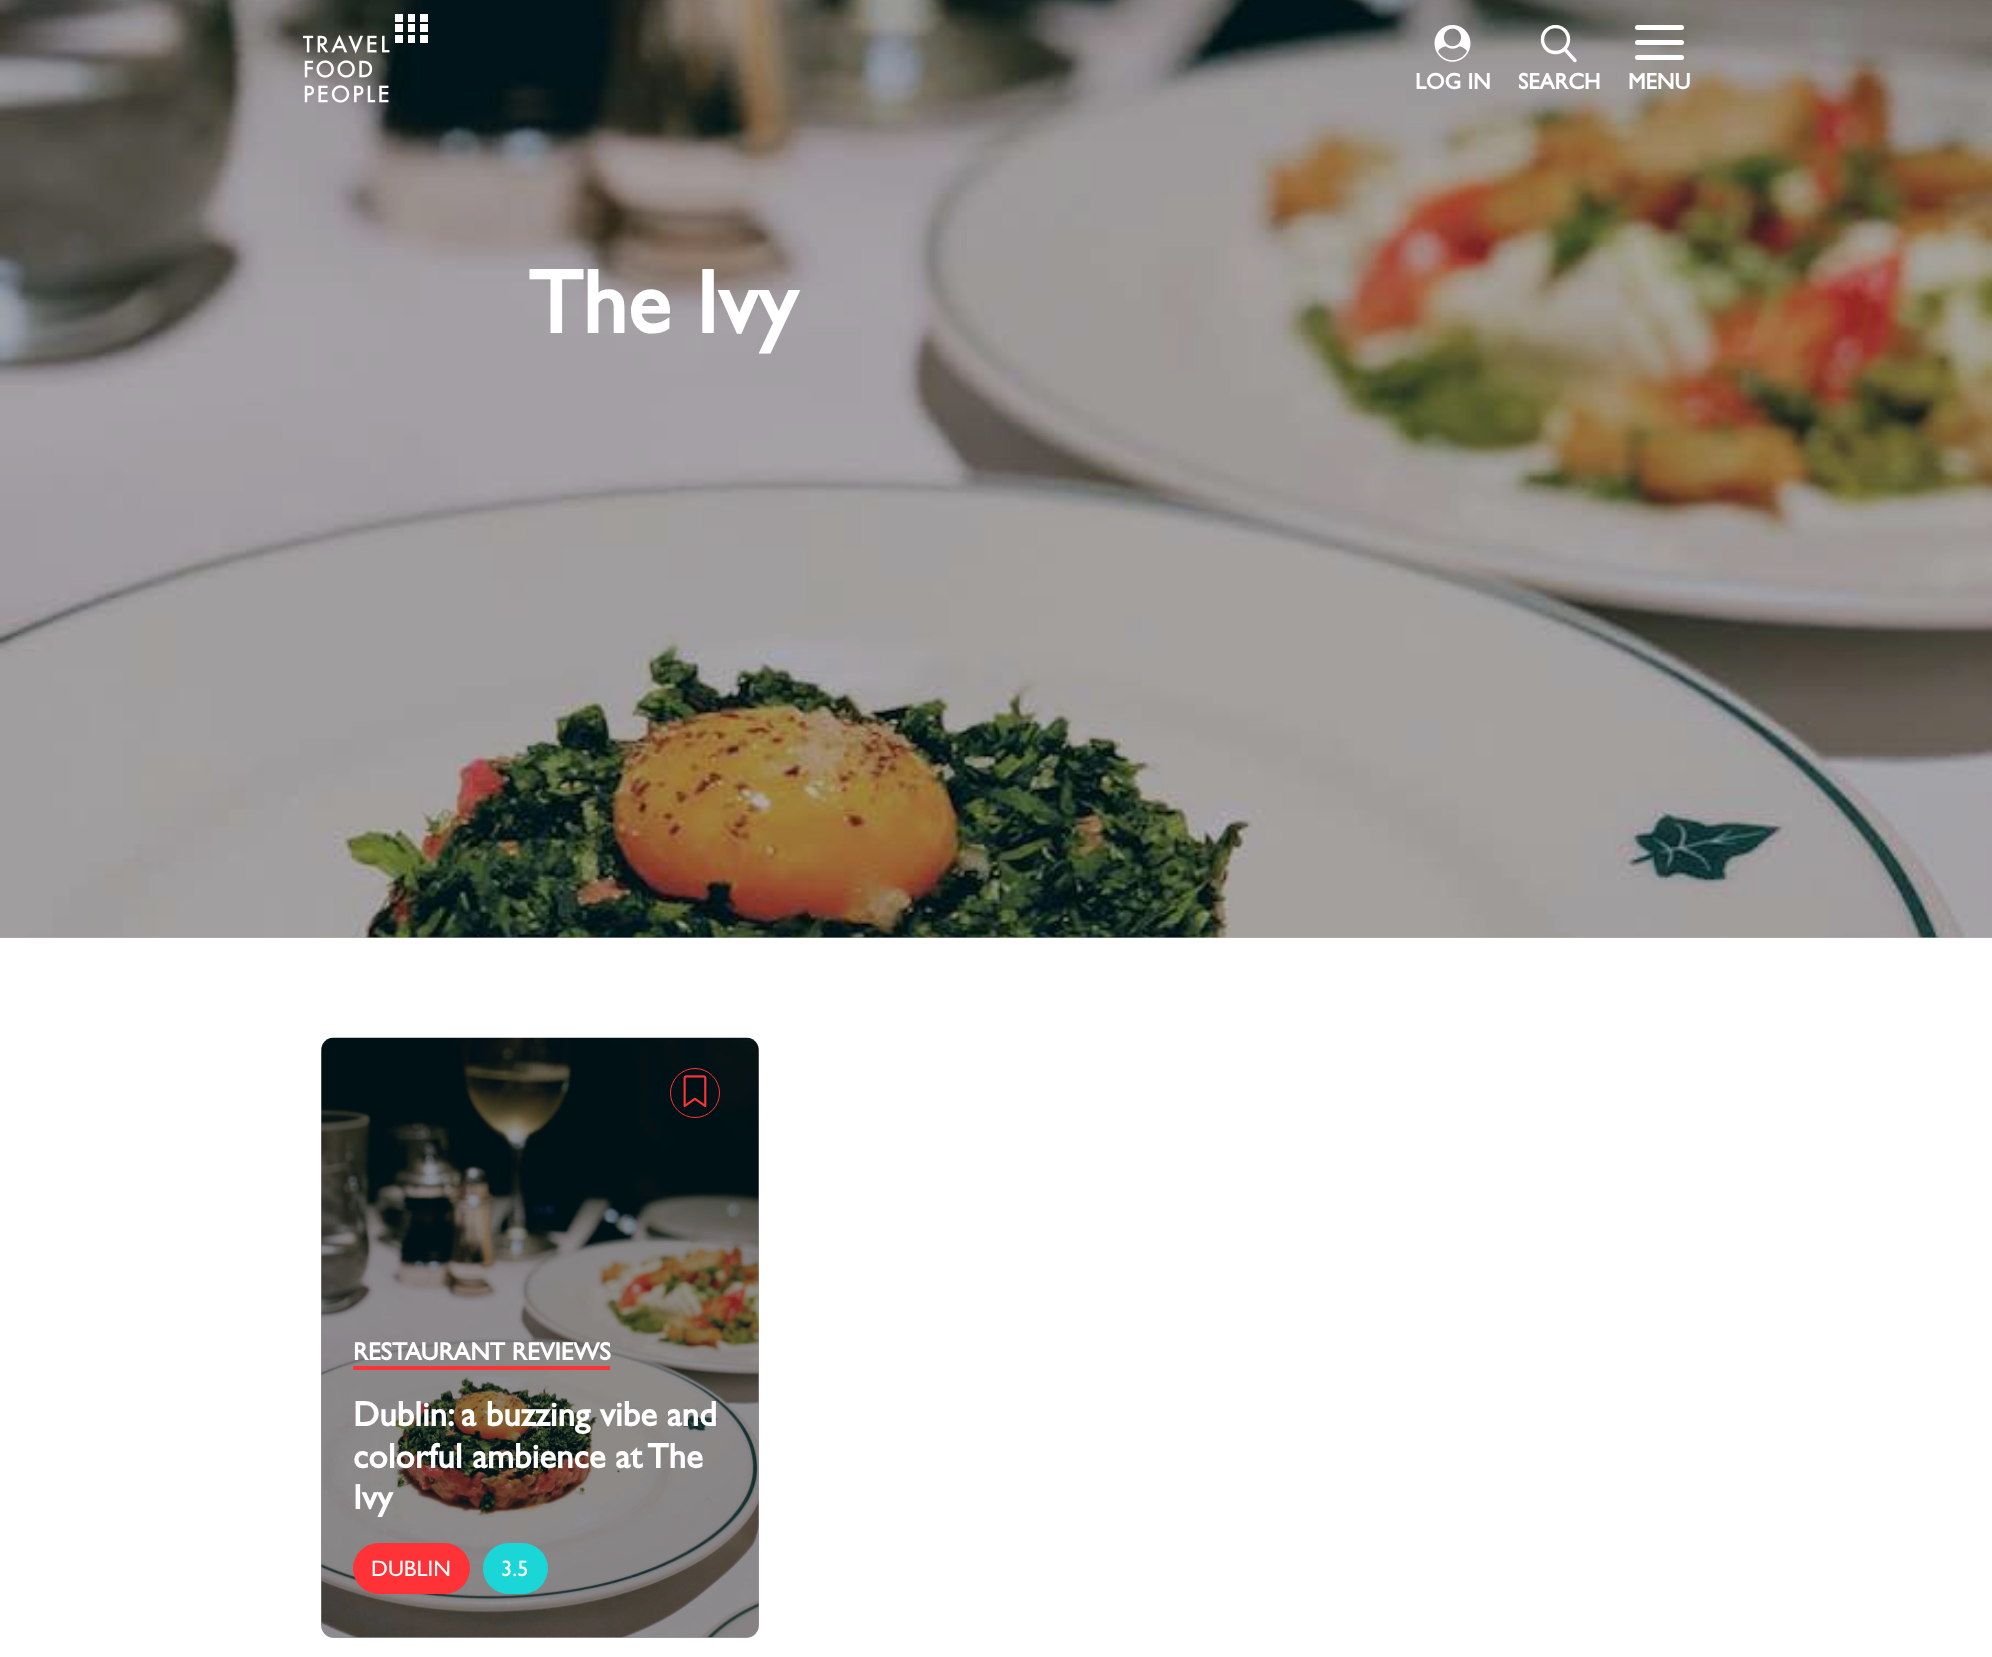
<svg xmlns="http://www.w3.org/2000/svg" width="1992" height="1657">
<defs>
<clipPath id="clip1"><rect x="1533" y="25" width="53" height="38"/></clipPath>
</defs>
<rect width="100%" height="100%" fill="#fff"/>
<rect y="937" width="1992" height="1" fill="#b3b3b3"/>
<image x="0" y="0" width="1992" height="938" href="media/3.png"/>
<image x="303" y="14" width="125" height="89" href="media/1.png"/>
<image x="1434" y="25" width="37" height="37" href="media/2.png"/>
<text x="1415" y="89" style="font-family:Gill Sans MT;font-size:22.5px;font-weight:bold;fill:#fff">LOG IN</text>
<g clip-path="url(#clip1)">
<circle cx="1555.5" cy="39.5" r="13" fill="none" stroke="#fff" stroke-width="3.4"/>
</g>
<path d="M1565 49.5l10 11" fill="none" stroke="#fff" stroke-width="3.4" stroke-linecap="round"/>
<text x="1518" y="89" style="font-family:Gill Sans MT;font-size:22.5px;font-weight:bold;fill:#fff">SEARCH</text>
<rect x="1635" y="25" width="49" height="5" rx="2.5" fill="#fff"/>
<rect x="1635" y="40" width="49" height="5" rx="2.5" fill="#fff"/>
<rect x="1635" y="55" width="49" height="5" rx="2.5" fill="#fff"/>
<text x="1628" y="89" style="font-family:Gill Sans MT;font-size:22.5px;font-weight:bold;fill:#fff">MENU</text>
<text x="528" y="333" style="font-family:Gill Sans MT;font-size:90px;font-weight:bold;fill:#fff">The Ivy</text>
<image x="321" y="1037" width="438" height="601" href="media/5.png"/>
<rect x="321" y="1038" width="438" height="600" rx="13" fill="#00000066"/>
<circle cx="695" cy="1093" r="24.5" fill="none" stroke="#ff3237"/>
<image x="683" y="1075" width="24" height="33" href="media/4.png"/>
<rect x="353" y="1366" width="257" height="4" fill="#ff3237"/>
<text x="353" y="1360" style="font-family:Gill Sans MT;font-size:25px;font-weight:bold;fill:#fff">RESTAURANT REVIEWS</text>
<text x="353" y="1426" style="font-family:Gill Sans MT;font-size:35px;font-weight:bold;fill:#fff">Dublin: a buzzing vibe and</text>
<text x="353" y="1468" style="font-family:Gill Sans MT;font-size:35px;font-weight:bold;fill:#fff">colorful ambience at The</text>
<text x="353" y="1509" style="font-family:Gill Sans MT;font-size:35px;font-weight:bold;fill:#fff">Ivy</text>
<rect x="353" y="1543" width="117" height="51" rx="25.5" fill="#ff3237"/>
<text x="371" y="1576" style="font-family:Gill Sans MT;font-size:22.5px;fill:#fff">DUBLIN</text>
<rect x="483" y="1543" width="65" height="51" rx="25.5" fill="#1bd6d7"/>
<text x="501" y="1576" style="font-family:Gill Sans MT;font-size:22.5px;fill:#fff">3.5</text>
</svg>
